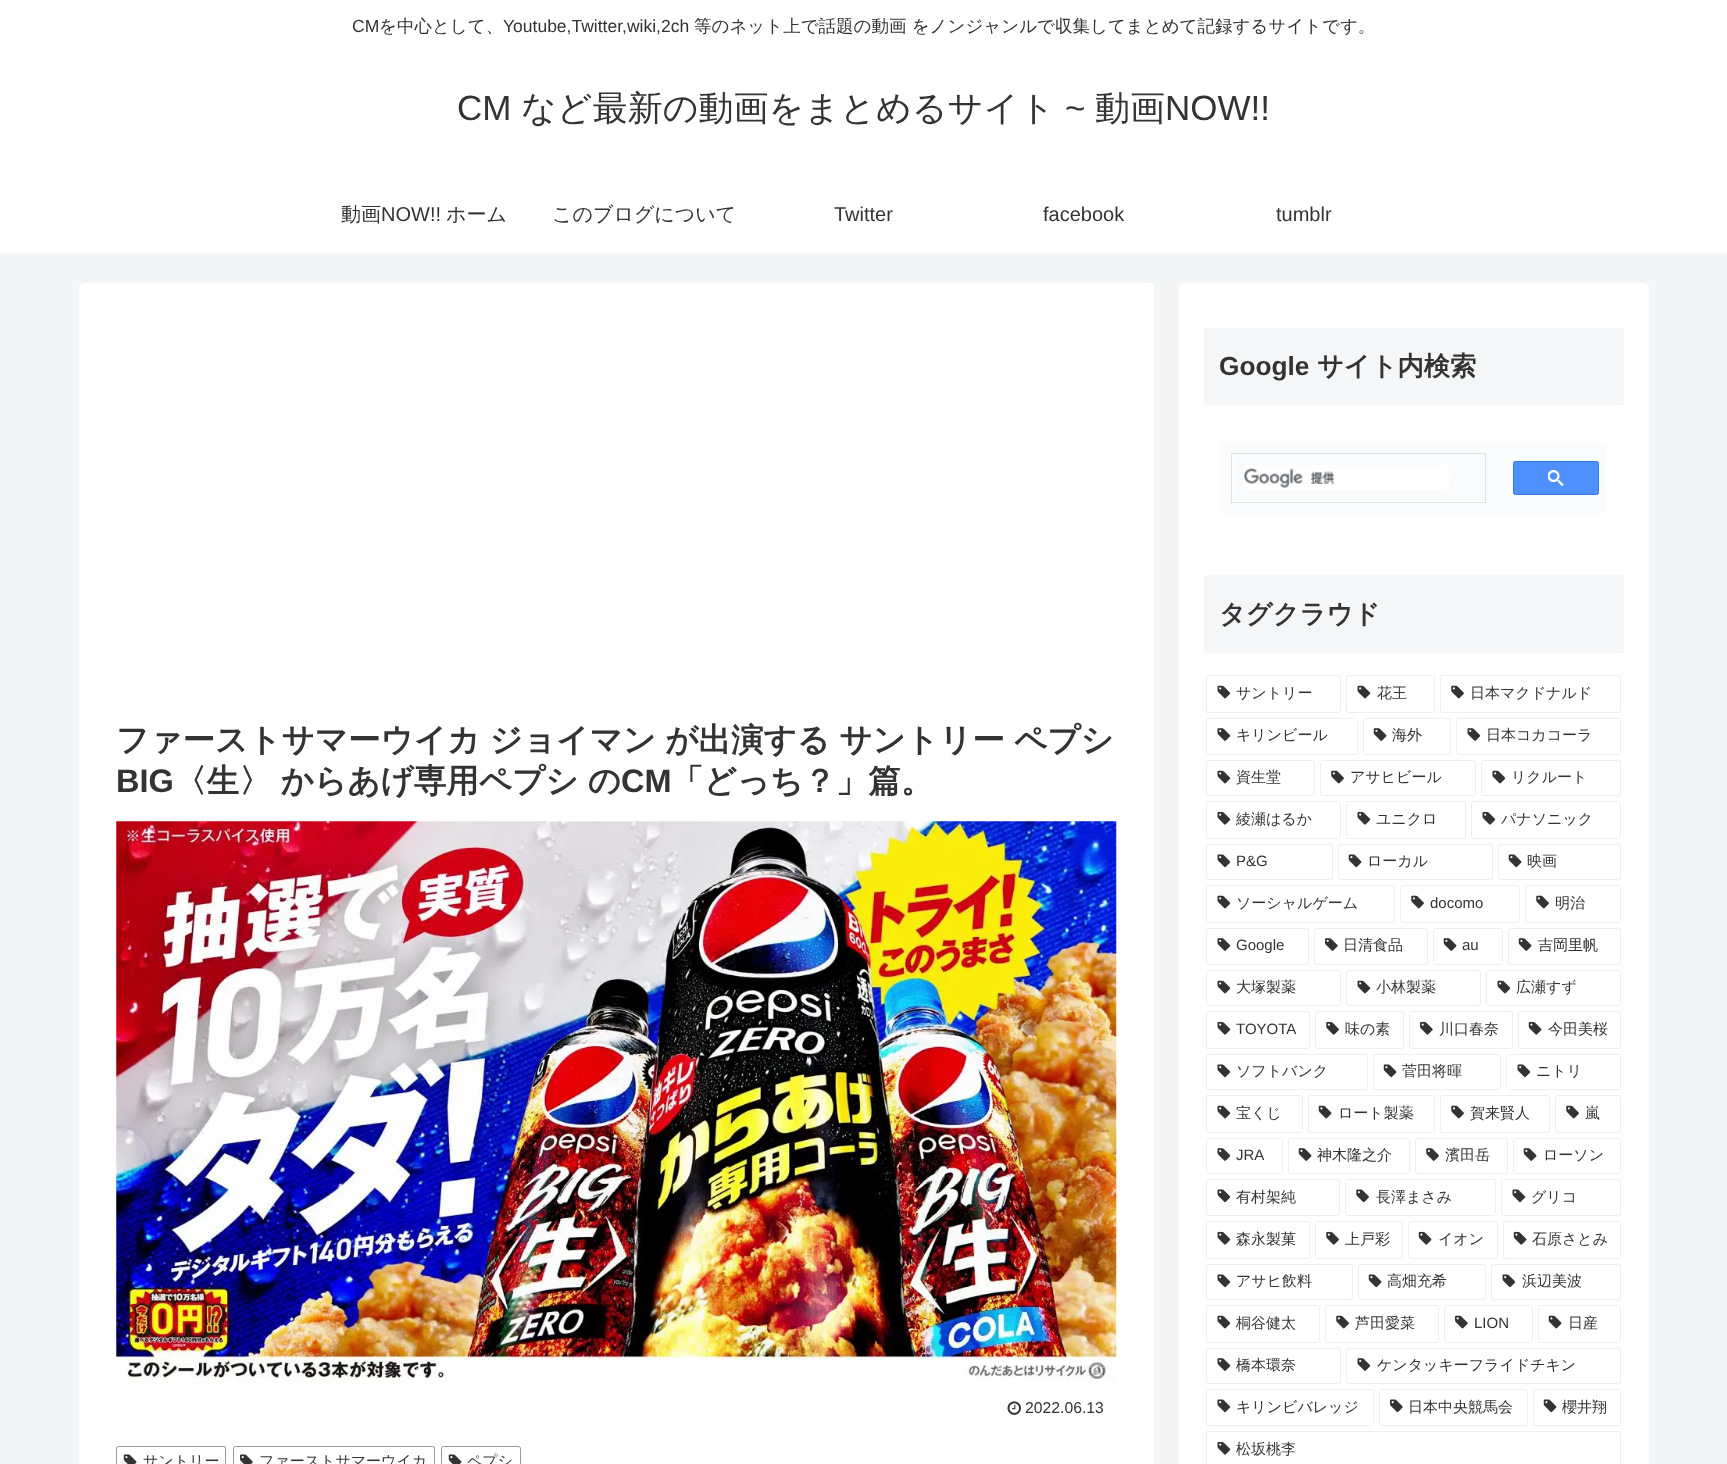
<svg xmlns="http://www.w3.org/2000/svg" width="1727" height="1464">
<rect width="100%" height="100%" fill="#f4f5f7"/>
<rect width="1727" height="253" fill="#fff"/>
<text x="352" y="32" style="font-family:Liberation Sans;font-size:17.5px;fill:#333">CM</text>
<text x="379" y="32" style="font-family:WenQuanYi Zen Hei;font-size:17.5px;font-weight:500;fill:#333">を中心として、</text>
<text x="503" y="32" style="font-family:Liberation Sans;font-size:17.5px;fill:#333">Youtube,Twitter,wiki,2ch</text>
<text x="694" y="32" style="font-family:WenQuanYi Zen Hei;font-size:17.5px;font-weight:500;fill:#333">等のネット上で話題の動画 をノンジャンルで収集してまとめて記録するサイトです。</text>
<text x="457" y="120" style="font-family:Liberation Sans;font-size:35px;fill:#333">CM</text>
<text x="521" y="120" style="font-family:WenQuanYi Zen Hei;font-size:35px;font-weight:500;fill:#333">など最新の動画をまとめるサイト</text>
<text x="1065" y="120" style="font-family:Liberation Sans;font-size:35px;fill:#333">~</text>
<text x="1095" y="120" style="font-family:WenQuanYi Zen Hei;font-size:35px;font-weight:500;fill:#333">動画</text>
<text x="1165" y="120" style="font-family:Liberation Sans;font-size:35px;fill:#333">NOW!!</text>
<text x="341" y="221" style="font-family:WenQuanYi Zen Hei;font-size:20px;font-weight:500;fill:#333">動画</text>
<text x="381" y="221" style="font-family:Liberation Sans;font-size:20px;fill:#333">NOW!!</text>
<text x="446" y="221" style="font-family:WenQuanYi Zen Hei;font-size:20px;font-weight:500;fill:#333">ホーム</text>
<text x="552" y="221" style="font-family:WenQuanYi Zen Hei;font-size:20px;font-weight:500;fill:#333">このブログについて</text>
<text x="834" y="221" style="font-family:Liberation Sans;font-size:20px;fill:#333">Twitter</text>
<text x="1043" y="221" style="font-family:Liberation Sans;font-size:20px;fill:#333">facebook</text>
<text x="1276" y="221" style="font-family:Liberation Sans;font-size:20px;fill:#333">tumblr</text>
<rect x="79" y="283" width="1075" height="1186" rx="5" fill="#fff"/>
<text x="116" y="751" word-spacing="-0.5" style="font-family:WenQuanYi Zen Hei;font-size:32.5px;font-weight:bold;fill:#333">ファーストサマーウイカ ジョイマン が出演する サントリー ペプシ</text>
<text x="116" y="792" style="font-family:Liberation Sans;font-size:32.5px;font-weight:bold;fill:#333">BIG</text>
<text x="174" y="792" word-spacing="-0.5" style="font-family:WenQuanYi Zen Hei;font-size:32.5px;font-weight:bold;fill:#333">〈生〉 からあげ専用ペプシ の</text>
<text x="621" y="792" style="font-family:Liberation Sans;font-size:32.5px;font-weight:bold;fill:#333">CM</text>
<text x="671" y="792" style="font-family:WenQuanYi Zen Hei;font-size:32.5px;font-weight:bold;fill:#333">「どっち？」篇。</text>
<image x="116" y="821" width="1001" height="563" href="media/1.png"/>
<image x="1007" y="1401" width="14" height="14" href="media/2.png"/>
<text x="1025" y="1413" style="font-family:Liberation Sans;font-size:15.75px;fill:#333">2022.06.13</text>
<rect x="116.5" y="1446.5" width="109" height="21" rx="2" fill="none" stroke="#999"/>
<image x="123" y="1454" width="14" height="10" href="media/3.png"/>
<text x="143" y="1466" style="font-family:WenQuanYi Zen Hei;font-size:15px;font-weight:500;fill:#333">サントリー</text>
<rect x="233.5" y="1446.5" width="201" height="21" rx="2" fill="none" stroke="#999"/>
<image x="240" y="1454" width="13" height="10" href="media/4.png"/>
<text x="259" y="1466" style="font-family:WenQuanYi Zen Hei;font-size:15px;font-weight:500;fill:#333">ファーストサマーウイカ</text>
<rect x="441.5" y="1446.5" width="79" height="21" rx="2" fill="none" stroke="#999"/>
<image x="448" y="1454" width="14" height="10" href="media/3.png"/>
<text x="467" y="1466" style="font-family:WenQuanYi Zen Hei;font-size:15px;font-weight:500;fill:#333">ペプシ</text>
<rect x="1179" y="283" width="470" height="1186" rx="5" fill="#fff"/>
<rect x="1204" y="328" width="420" height="77" rx="2.5" fill="#f5f6f7"/>
<text x="1219" y="375" style="font-family:Liberation Sans;font-size:26.25px;font-weight:bold;fill:#333">Google</text>
<text x="1317" y="375" style="font-family:WenQuanYi Zen Hei;font-size:26.25px;font-weight:bold;fill:#333">サイト内検索</text>
<rect x="1221" y="443" width="385" height="70" fill="#fafbfc"/>
<rect x="1231.5" y="453.5" width="254" height="49" fill="#fff" stroke="#dfe1e5"/>
<rect x="1233" y="454" width="252" height="47" fill="#fafbfc"/>
<rect x="1244" y="465" width="205" height="25" rx="5" fill="#fff"/>
<image x="1243" y="468" width="92" height="20" href="media/5.png"/>
<rect x="1513.5" y="461.5" width="85" height="33" rx="2" fill="#4d90fe" stroke="#3079ed"/>
<image x="1548" y="470" width="16" height="16" href="media/6.png"/>
<rect x="1204" y="575" width="420" height="78" rx="2.5" fill="#f5f6f7"/>
<text x="1219" y="623" style="font-family:WenQuanYi Zen Hei;font-size:26.25px;font-weight:bold;fill:#333">タグクラウド</text>
<rect x="1206.5" y="675.5" width="134" height="37" rx="2" fill="none" stroke="#eee"/>
<image x="1217" y="685" width="14" height="14" href="media/7.png"/>
<text x="1236" y="698" style="font-family:WenQuanYi Zen Hei;font-size:15px;font-weight:500;fill:#333">サントリー</text>
<rect x="1346.5" y="675.5" width="88" height="37" rx="2" fill="none" stroke="#eee"/>
<image x="1357" y="685" width="14" height="14" href="media/7.png"/>
<text x="1377" y="698" style="font-family:WenQuanYi Zen Hei;font-size:15px;font-weight:500;fill:#333">花王</text>
<rect x="1440.5" y="675.5" width="180" height="37" rx="2" fill="none" stroke="#eee"/>
<image x="1451" y="685" width="13" height="14" href="media/8.png"/>
<text x="1470" y="698" style="font-family:WenQuanYi Zen Hei;font-size:15px;font-weight:500;fill:#333">日本マクドナルド</text>
<rect x="1206.5" y="718.5" width="151" height="36" rx="2" fill="none" stroke="#eee"/>
<image x="1217" y="728" width="14" height="13" href="media/9.png"/>
<text x="1236" y="740" style="font-family:WenQuanYi Zen Hei;font-size:15px;font-weight:500;fill:#333">キリンビール</text>
<rect x="1363.5" y="718.5" width="87" height="36" rx="2" fill="none" stroke="#eee"/>
<image x="1373" y="728" width="14" height="13" href="media/10.png"/>
<text x="1392" y="740" style="font-family:WenQuanYi Zen Hei;font-size:15px;font-weight:500;fill:#333">海外</text>
<rect x="1456.5" y="718.5" width="164" height="36" rx="2" fill="none" stroke="#eee"/>
<image x="1467" y="728" width="14" height="13" href="media/9.png"/>
<text x="1486" y="740" style="font-family:WenQuanYi Zen Hei;font-size:15px;font-weight:500;fill:#333">日本コカコーラ</text>
<rect x="1206.5" y="760.5" width="108" height="35" rx="2" fill="none" stroke="#eee"/>
<image x="1217" y="770" width="14" height="14" href="media/7.png"/>
<text x="1236" y="782" style="font-family:WenQuanYi Zen Hei;font-size:15px;font-weight:500;fill:#333">資生堂</text>
<rect x="1320.5" y="760.5" width="155" height="35" rx="2" fill="none" stroke="#eee"/>
<image x="1331" y="770" width="13" height="14" href="media/8.png"/>
<text x="1350" y="782" style="font-family:WenQuanYi Zen Hei;font-size:15px;font-weight:500;fill:#333">アサヒビール</text>
<rect x="1481.5" y="760.5" width="139" height="35" rx="2" fill="none" stroke="#eee"/>
<image x="1492" y="770" width="14" height="14" href="media/7.png"/>
<text x="1511" y="782" style="font-family:WenQuanYi Zen Hei;font-size:15px;font-weight:500;fill:#333">リクルート</text>
<rect x="1206.5" y="801.5" width="134" height="37" rx="2" fill="none" stroke="#eee"/>
<image x="1217" y="811" width="14" height="14" href="media/11.png"/>
<text x="1236" y="824" style="font-family:WenQuanYi Zen Hei;font-size:15px;font-weight:500;fill:#333">綾瀬はるか</text>
<rect x="1346.5" y="801.5" width="119" height="37" rx="2" fill="none" stroke="#eee"/>
<image x="1357" y="811" width="14" height="14" href="media/11.png"/>
<text x="1376" y="824" style="font-family:WenQuanYi Zen Hei;font-size:15px;font-weight:500;fill:#333">ユニクロ</text>
<rect x="1471.5" y="801.5" width="149" height="37" rx="2" fill="none" stroke="#eee"/>
<image x="1482" y="811" width="14" height="14" href="media/11.png"/>
<text x="1501" y="824" style="font-family:WenQuanYi Zen Hei;font-size:15px;font-weight:500;fill:#333">パナソニック</text>
<rect x="1206.5" y="844.5" width="126" height="35" rx="2" fill="none" stroke="#eee"/>
<image x="1217" y="854" width="14" height="14" href="media/12.png"/>
<text x="1236" y="866" style="font-family:Liberation Sans;font-size:15px;fill:#333">P&amp;G</text>
<rect x="1338.5" y="844.5" width="154" height="35" rx="2" fill="none" stroke="#eee"/>
<image x="1348" y="854" width="14" height="14" href="media/13.png"/>
<text x="1367" y="866" style="font-family:WenQuanYi Zen Hei;font-size:15px;font-weight:500;fill:#333">ローカル</text>
<rect x="1498.5" y="844.5" width="122" height="35" rx="2" fill="none" stroke="#eee"/>
<image x="1508" y="854" width="14" height="14" href="media/13.png"/>
<text x="1527" y="866" style="font-family:WenQuanYi Zen Hei;font-size:15px;font-weight:500;fill:#333">映画</text>
<rect x="1206.5" y="885.5" width="188" height="37" rx="2" fill="none" stroke="#eee"/>
<image x="1217" y="895" width="14" height="14" href="media/7.png"/>
<text x="1236" y="908" style="font-family:WenQuanYi Zen Hei;font-size:15px;font-weight:500;fill:#333">ソーシャルゲーム</text>
<rect x="1400.5" y="885.5" width="119" height="37" rx="2" fill="none" stroke="#eee"/>
<image x="1411" y="895" width="13" height="14" href="media/8.png"/>
<text x="1430" y="908" style="font-family:Liberation Sans;font-size:15px;fill:#333">docomo</text>
<rect x="1525.5" y="885.5" width="95" height="37" rx="2" fill="none" stroke="#eee"/>
<image x="1536" y="895" width="13" height="14" href="media/8.png"/>
<text x="1555" y="908" style="font-family:WenQuanYi Zen Hei;font-size:15px;font-weight:500;fill:#333">明治</text>
<rect x="1206.5" y="928.5" width="102" height="36" rx="2" fill="none" stroke="#eee"/>
<image x="1217" y="938" width="14" height="13" href="media/9.png"/>
<text x="1236" y="950" style="font-family:Liberation Sans;font-size:15px;fill:#333">Google</text>
<rect x="1314.5" y="928.5" width="113" height="36" rx="2" fill="none" stroke="#eee"/>
<image x="1325" y="938" width="13" height="13" href="media/14.png"/>
<text x="1343" y="950" style="font-family:WenQuanYi Zen Hei;font-size:15px;font-weight:500;fill:#333">日清食品</text>
<rect x="1433.5" y="928.5" width="69" height="36" rx="2" fill="none" stroke="#eee"/>
<image x="1443" y="938" width="14" height="13" href="media/10.png"/>
<text x="1462" y="950" style="font-family:Liberation Sans;font-size:15px;fill:#333">au</text>
<rect x="1508.5" y="928.5" width="112" height="36" rx="2" fill="none" stroke="#eee"/>
<image x="1518" y="938" width="14" height="13" href="media/10.png"/>
<text x="1538" y="950" style="font-family:WenQuanYi Zen Hei;font-size:15px;font-weight:500;fill:#333">吉岡里帆</text>
<rect x="1206.5" y="970.5" width="134" height="35" rx="2" fill="none" stroke="#eee"/>
<image x="1217" y="980" width="14" height="14" href="media/7.png"/>
<text x="1236" y="992" style="font-family:WenQuanYi Zen Hei;font-size:15px;font-weight:500;fill:#333">大塚製薬</text>
<rect x="1346.5" y="970.5" width="134" height="35" rx="2" fill="none" stroke="#eee"/>
<image x="1357" y="980" width="14" height="14" href="media/7.png"/>
<text x="1376" y="992" style="font-family:WenQuanYi Zen Hei;font-size:15px;font-weight:500;fill:#333">小林製薬</text>
<rect x="1486.5" y="970.5" width="134" height="35" rx="2" fill="none" stroke="#eee"/>
<image x="1497" y="980" width="14" height="14" href="media/7.png"/>
<text x="1516" y="992" style="font-family:WenQuanYi Zen Hei;font-size:15px;font-weight:500;fill:#333">広瀬すず</text>
<rect x="1206.5" y="1011.5" width="103" height="37" rx="2" fill="none" stroke="#eee"/>
<image x="1217" y="1021" width="14" height="14" href="media/11.png"/>
<text x="1236" y="1034" style="font-family:Liberation Sans;font-size:15px;fill:#333">TOYOTA</text>
<rect x="1315.5" y="1011.5" width="88" height="37" rx="2" fill="none" stroke="#eee"/>
<image x="1326" y="1021" width="13" height="14" href="media/15.png"/>
<text x="1345" y="1034" style="font-family:WenQuanYi Zen Hei;font-size:15px;font-weight:500;fill:#333">味の素</text>
<rect x="1409.5" y="1011.5" width="103" height="37" rx="2" fill="none" stroke="#eee"/>
<image x="1420" y="1021" width="13" height="14" href="media/16.png"/>
<text x="1439" y="1034" style="font-family:WenQuanYi Zen Hei;font-size:15px;font-weight:500;fill:#333">川口春奈</text>
<rect x="1518.5" y="1011.5" width="102" height="37" rx="2" fill="none" stroke="#eee"/>
<image x="1528" y="1021" width="14" height="14" href="media/17.png"/>
<text x="1548" y="1034" style="font-family:WenQuanYi Zen Hei;font-size:15px;font-weight:500;fill:#333">今田美桜</text>
<rect x="1206.5" y="1054.5" width="161" height="35" rx="2" fill="none" stroke="#eee"/>
<image x="1217" y="1064" width="14" height="14" href="media/12.png"/>
<text x="1236" y="1076" style="font-family:WenQuanYi Zen Hei;font-size:15px;font-weight:500;fill:#333">ソフトバンク</text>
<rect x="1373.5" y="1054.5" width="127" height="35" rx="2" fill="none" stroke="#eee"/>
<image x="1383" y="1064" width="14" height="14" href="media/13.png"/>
<text x="1402" y="1076" style="font-family:WenQuanYi Zen Hei;font-size:15px;font-weight:500;fill:#333">菅田将暉</text>
<rect x="1506.5" y="1054.5" width="114" height="35" rx="2" fill="none" stroke="#eee"/>
<image x="1517" y="1064" width="14" height="14" href="media/12.png"/>
<text x="1536" y="1076" style="font-family:WenQuanYi Zen Hei;font-size:15px;font-weight:500;fill:#333">ニトリ</text>
<rect x="1206.5" y="1095.5" width="96" height="37" rx="2" fill="none" stroke="#eee"/>
<image x="1217" y="1105" width="14" height="14" href="media/7.png"/>
<text x="1236" y="1118" style="font-family:WenQuanYi Zen Hei;font-size:15px;font-weight:500;fill:#333">宝くじ</text>
<rect x="1308.5" y="1095.5" width="126" height="37" rx="2" fill="none" stroke="#eee"/>
<image x="1318" y="1105" width="14" height="14" href="media/18.png"/>
<text x="1338" y="1118" style="font-family:WenQuanYi Zen Hei;font-size:15px;font-weight:500;fill:#333">ロート製薬</text>
<rect x="1440.5" y="1095.5" width="109" height="37" rx="2" fill="none" stroke="#eee"/>
<image x="1451" y="1105" width="13" height="14" href="media/8.png"/>
<text x="1470" y="1118" style="font-family:WenQuanYi Zen Hei;font-size:15px;font-weight:500;fill:#333">賀来賢人</text>
<rect x="1555.5" y="1095.5" width="65" height="37" rx="2" fill="none" stroke="#eee"/>
<image x="1566" y="1105" width="13" height="14" href="media/8.png"/>
<text x="1585" y="1118" style="font-family:WenQuanYi Zen Hei;font-size:15px;font-weight:500;fill:#333">嵐</text>
<rect x="1206.5" y="1138.5" width="76" height="35" rx="2" fill="none" stroke="#eee"/>
<image x="1217" y="1148" width="14" height="13" href="media/9.png"/>
<text x="1236" y="1160" style="font-family:Liberation Sans;font-size:15px;fill:#333">JRA</text>
<rect x="1288.5" y="1138.5" width="121" height="35" rx="2" fill="none" stroke="#eee"/>
<image x="1298" y="1148" width="14" height="13" href="media/10.png"/>
<text x="1317" y="1160" style="font-family:WenQuanYi Zen Hei;font-size:15px;font-weight:500;fill:#333">神木隆之介</text>
<rect x="1415.5" y="1138.5" width="92" height="35" rx="2" fill="none" stroke="#eee"/>
<image x="1426" y="1148" width="13" height="13" href="media/19.png"/>
<text x="1445" y="1160" style="font-family:WenQuanYi Zen Hei;font-size:15px;font-weight:500;fill:#333">濱田岳</text>
<rect x="1513.5" y="1138.5" width="107" height="35" rx="2" fill="none" stroke="#eee"/>
<image x="1523" y="1148" width="14" height="13" href="media/10.png"/>
<text x="1543" y="1160" style="font-family:WenQuanYi Zen Hei;font-size:15px;font-weight:500;fill:#333">ローソン</text>
<rect x="1206.5" y="1179.5" width="133" height="36" rx="2" fill="none" stroke="#eee"/>
<image x="1217" y="1189" width="14" height="14" href="media/12.png"/>
<text x="1236" y="1202" style="font-family:WenQuanYi Zen Hei;font-size:15px;font-weight:500;fill:#333">有村架純</text>
<rect x="1345.5" y="1179.5" width="150" height="36" rx="2" fill="none" stroke="#eee"/>
<image x="1356" y="1189" width="13" height="14" href="media/20.png"/>
<text x="1376" y="1202" style="font-family:WenQuanYi Zen Hei;font-size:15px;font-weight:500;fill:#333">長澤まさみ</text>
<rect x="1501.5" y="1179.5" width="119" height="36" rx="2" fill="none" stroke="#eee"/>
<image x="1512" y="1189" width="14" height="14" href="media/12.png"/>
<text x="1531" y="1202" style="font-family:WenQuanYi Zen Hei;font-size:15px;font-weight:500;fill:#333">グリコ</text>
<rect x="1206.5" y="1221.5" width="103" height="37" rx="2" fill="none" stroke="#eee"/>
<image x="1217" y="1231" width="14" height="14" href="media/11.png"/>
<text x="1236" y="1244" style="font-family:WenQuanYi Zen Hei;font-size:15px;font-weight:500;fill:#333">森永製菓</text>
<rect x="1315.5" y="1221.5" width="87" height="37" rx="2" fill="none" stroke="#eee"/>
<image x="1326" y="1231" width="13" height="14" href="media/15.png"/>
<text x="1345" y="1244" style="font-family:WenQuanYi Zen Hei;font-size:15px;font-weight:500;fill:#333">上戸彩</text>
<rect x="1408.5" y="1221.5" width="89" height="37" rx="2" fill="none" stroke="#eee"/>
<image x="1418" y="1231" width="14" height="14" href="media/17.png"/>
<text x="1438" y="1244" style="font-family:WenQuanYi Zen Hei;font-size:15px;font-weight:500;fill:#333">イオン</text>
<rect x="1503.5" y="1221.5" width="117" height="37" rx="2" fill="none" stroke="#eee"/>
<image x="1513" y="1231" width="14" height="14" href="media/17.png"/>
<text x="1532" y="1244" style="font-family:WenQuanYi Zen Hei;font-size:15px;font-weight:500;fill:#333">石原さとみ</text>
<rect x="1206.5" y="1264.5" width="146" height="35" rx="2" fill="none" stroke="#eee"/>
<image x="1217" y="1274" width="14" height="14" href="media/12.png"/>
<text x="1236" y="1286" style="font-family:WenQuanYi Zen Hei;font-size:15px;font-weight:500;fill:#333">アサヒ飲料</text>
<rect x="1358.5" y="1264.5" width="127" height="35" rx="2" fill="none" stroke="#eee"/>
<image x="1368" y="1274" width="14" height="14" href="media/13.png"/>
<text x="1387" y="1286" style="font-family:WenQuanYi Zen Hei;font-size:15px;font-weight:500;fill:#333">高畑充希</text>
<rect x="1491.5" y="1264.5" width="129" height="35" rx="2" fill="none" stroke="#eee"/>
<image x="1502" y="1274" width="14" height="14" href="media/12.png"/>
<text x="1522" y="1286" style="font-family:WenQuanYi Zen Hei;font-size:15px;font-weight:500;fill:#333">浜辺美波</text>
<rect x="1206.5" y="1305.5" width="113" height="37" rx="2" fill="none" stroke="#eee"/>
<image x="1217" y="1315" width="14" height="14" href="media/7.png"/>
<text x="1236" y="1328" style="font-family:WenQuanYi Zen Hei;font-size:15px;font-weight:500;fill:#333">桐谷健太</text>
<rect x="1325.5" y="1305.5" width="113" height="37" rx="2" fill="none" stroke="#eee"/>
<image x="1336" y="1315" width="13" height="14" href="media/8.png"/>
<text x="1355" y="1328" style="font-family:WenQuanYi Zen Hei;font-size:15px;font-weight:500;fill:#333">芦田愛菜</text>
<rect x="1444.5" y="1305.5" width="88" height="37" rx="2" fill="none" stroke="#eee"/>
<image x="1455" y="1315" width="13" height="14" href="media/21.png"/>
<text x="1474" y="1328" style="font-family:Liberation Sans;font-size:15px;fill:#333">LION</text>
<rect x="1538.5" y="1305.5" width="82" height="37" rx="2" fill="none" stroke="#eee"/>
<image x="1548" y="1315" width="14" height="14" href="media/18.png"/>
<text x="1568" y="1328" style="font-family:WenQuanYi Zen Hei;font-size:15px;font-weight:500;fill:#333">日産</text>
<rect x="1206.5" y="1348.5" width="134" height="35" rx="2" fill="none" stroke="#eee"/>
<image x="1217" y="1358" width="14" height="13" href="media/9.png"/>
<text x="1236" y="1370" style="font-family:WenQuanYi Zen Hei;font-size:15px;font-weight:500;fill:#333">橋本環奈</text>
<rect x="1346.5" y="1348.5" width="274" height="35" rx="2" fill="none" stroke="#eee"/>
<image x="1357" y="1358" width="14" height="13" href="media/9.png"/>
<text x="1377" y="1370" style="font-family:WenQuanYi Zen Hei;font-size:15px;font-weight:500;fill:#333">ケンタッキーフライドチキン</text>
<rect x="1206.5" y="1389.5" width="167" height="36" rx="2" fill="none" stroke="#eee"/>
<image x="1217" y="1399" width="14" height="14" href="media/12.png"/>
<text x="1236" y="1412" style="font-family:WenQuanYi Zen Hei;font-size:15px;font-weight:500;fill:#333">キリンビバレッジ</text>
<rect x="1379.5" y="1389.5" width="148" height="36" rx="2" fill="none" stroke="#eee"/>
<image x="1390" y="1399" width="13" height="14" href="media/22.png"/>
<text x="1408" y="1412" style="font-family:WenQuanYi Zen Hei;font-size:15px;font-weight:500;fill:#333">日本中央競馬会</text>
<rect x="1533.5" y="1389.5" width="87" height="36" rx="2" fill="none" stroke="#eee"/>
<image x="1543" y="1399" width="14" height="14" href="media/13.png"/>
<text x="1562" y="1412" style="font-family:WenQuanYi Zen Hei;font-size:15px;font-weight:500;fill:#333">櫻井翔</text>
<rect x="1206.5" y="1431.5" width="414" height="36" rx="2" fill="none" stroke="#eee"/>
<image x="1217" y="1441" width="14" height="14" href="media/11.png"/>
<text x="1236" y="1454" style="font-family:WenQuanYi Zen Hei;font-size:15px;font-weight:500;fill:#333">松坂桃李</text>
</svg>
